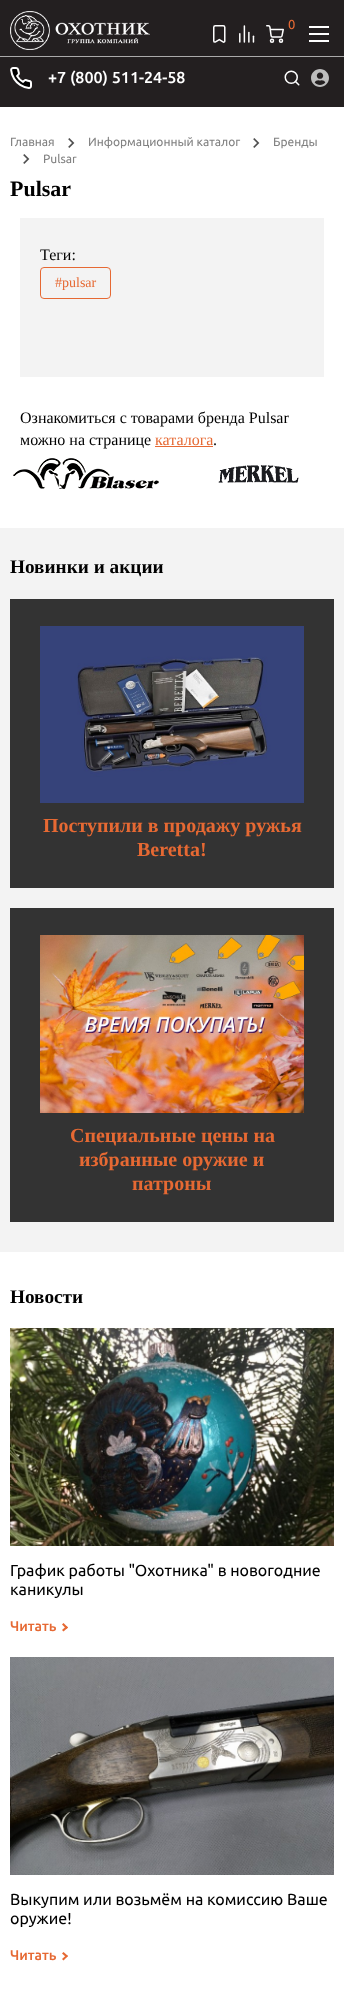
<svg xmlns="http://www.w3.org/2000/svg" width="344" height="2000">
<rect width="100%" height="100%" fill="#fff"/>
<rect width="344" height="107" fill="#231f20"/>
<image x="10" y="11" width="140" height="39" href="media/1.png"/>
<image x="213" y="25" width="13" height="18" href="media/2.png"/>
<image x="239" y="25" width="16" height="18" href="media/3.png"/>
<image x="266" y="25" width="18" height="18" href="media/4.png"/>
<text x="288" y="29" style="font-family:Ubuntu;font-size:13px;fill:#e66933">0</text>
<rect x="309" y="26" width="20" height="2" fill="#fff"/>
<rect x="309" y="33" width="20" height="2" fill="#fff"/>
<rect x="309" y="40" width="20" height="2" fill="#fff"/>
<rect y="56" width="344" height="1" fill="#aaa"/>
<image x="10" y="67" width="22" height="22" href="media/5.png"/>
<text x="48" y="83" style="font-family:Ubuntu;font-size:16px;font-weight:500;fill:#fff">+7 (800) 511-24-58</text>
<image x="284" y="70" width="16" height="16" href="media/6.png"/>
<image x="311" y="69" width="18" height="18" href="media/7.png"/>
<text x="10" y="146" style="font-family:Ubuntu;font-size:12px;fill:#828282">Главная</text>
<image x="68" y="138" width="7" height="10" href="media/8.png"/>
<text x="88" y="146" style="font-family:Ubuntu;font-size:12px;fill:#828282">Информационный каталог</text>
<image x="253" y="138" width="7" height="10" href="media/8.png"/>
<text x="273" y="146" style="font-family:Ubuntu;font-size:12px;fill:#828282">Бренды</text>
<image x="23" y="154" width="7" height="10" href="media/8.png"/>
<text x="43" y="163" style="font-family:Ubuntu;font-size:12px;fill:#828282">Pulsar</text>
<text x="10" y="196" style="font-family:Liberation Serif;font-size:22px;font-weight:bold;fill:#000">Pulsar</text>
<rect x="20" y="218" width="304" height="159" fill="#f3f3f3"/>
<text x="40" y="260" style="font-family:Liberation Serif;font-size:16px;fill:#000">Теги:</text>
<rect x="40.5" y="267.5" width="70" height="31" rx="3.5" fill="none" stroke="#e66933"/>
<text x="55" y="287" style="font-family:Liberation Serif;font-size:14px;fill:#e66933">#pulsar</text>
<text x="20" y="423" style="font-family:Liberation Serif;font-size:16px;fill:#000">Ознакомиться с товарами бренда Pulsar</text>
<text x="20" y="445" style="font-family:Liberation Serif;font-size:16px;fill:#000">можно на странице</text>
<text x="155" y="445" style="font-family:Liberation Serif;font-size:16px;fill:#e66933">каталога</text>
<rect x="155" y="446" width="58" height="1" fill="#e66933"/>
<text x="213" y="445" style="font-family:Liberation Serif;font-size:16px;fill:#000">.</text>
<image x="13" y="458" width="146" height="31" href="media/9.png"/>
<image x="218" y="465" width="81" height="18" href="media/10.png"/>
<rect y="528" width="344" height="724" fill="#f3f3f3"/>
<text x="10" y="573" style="font-family:Liberation Serif;font-size:19.25px;font-weight:bold;fill:#000">Новинки и акции</text>
<rect x="10" y="599" width="324" height="289" fill="#333"/>
<image x="40" y="626" width="264" height="177" href="media/11.png"/>
<text x="43" y="832" style="font-family:Liberation Serif;font-size:20px;font-weight:bold;fill:#e66933">Поступили в продажу ружья</text>
<text x="137" y="856" style="font-family:Liberation Serif;font-size:20px;font-weight:bold;fill:#e66933">Beretta!</text>
<rect x="10" y="908" width="324" height="314" fill="#333"/>
<image x="40" y="935" width="264" height="178" href="media/12.png"/>
<text x="70" y="1142" style="font-family:Liberation Serif;font-size:20px;font-weight:bold;fill:#e66933">Специальные цены на</text>
<text x="79" y="1166" style="font-family:Liberation Serif;font-size:20px;font-weight:bold;fill:#e66933">избранные оружие и</text>
<text x="132" y="1190" style="font-family:Liberation Serif;font-size:20px;font-weight:bold;fill:#e66933">патроны</text>
<text x="10" y="1303" style="font-family:Liberation Serif;font-size:19.25px;font-weight:bold;fill:#000">Новости</text>
<image x="10" y="1328" width="324" height="218" href="media/13.png"/>
<text x="10" y="1576" style="font-family:Ubuntu;font-size:16px;fill:#000">График работы "Охотника" в новогодние</text>
<text x="10" y="1595" style="font-family:Ubuntu;font-size:16px;fill:#000">каникулы</text>
<text x="10" y="1631" style="font-family:Ubuntu;font-size:14px;font-weight:500;fill:#e66933">Читать</text>
<path d="M63.5 1623l4.5 4.5l-1.5 1.5l-4.5-4.5z" fill="#e66933"/>
<path d="M66.5 1626l1.5 1.5l-4.5 4l-1.5-1.5z" fill="#e66933"/>
<image x="10" y="1657" width="324" height="218" href="media/14.png"/>
<text x="10" y="1905" style="font-family:Ubuntu;font-size:16px;fill:#000">Выкупим или возьмём на комиссию Ваше</text>
<text x="10" y="1924" style="font-family:Ubuntu;font-size:16px;fill:#000">оружие!</text>
<text x="10" y="1960" style="font-family:Ubuntu;font-size:14px;font-weight:500;fill:#e66933">Читать</text>
<path d="M63.5 1952l4.5 4l-1.5 1.5l-4.5-4z" fill="#e66933"/>
<path d="M66.5 1955l1.5 1l-4.5 4.5l-1.5-1.5z" fill="#e66933"/>
</svg>
